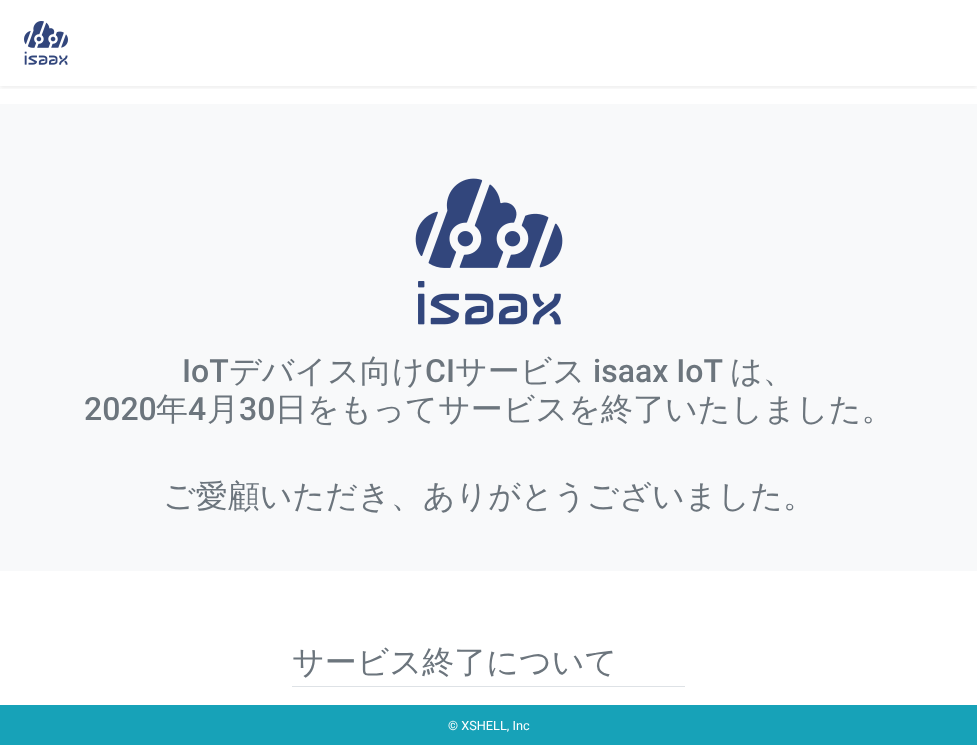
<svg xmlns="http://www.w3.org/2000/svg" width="977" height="745">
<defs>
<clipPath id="clip1"><rect x="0" y="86" width="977" height="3"/></clipPath>
</defs>
<rect width="100%" height="100%" fill="#fff"/>
<g clip-path="url(#clip1)">
<rect y="2" width="977" height="86" fill="#00000012" filter="blur(2px)"/>
</g>
<image x="24" y="21" width="44" height="44" href="media/1.png"/>
<rect y="104" width="977" height="467" fill="#f8f9fa"/>
<image x="415" y="178" width="148" height="147" href="media/2.png"/>
<text x="182" y="382" style="font-family:Roboto;font-size:32px;font-weight:500;fill:#6c757d">IoT</text>
<text x="229" y="382" style="font-family:WenQuanYi Zen Hei;font-size:32px;font-weight:500;fill:#6c757d">デバイス向け</text>
<text x="425" y="382" style="font-family:Roboto;font-size:32px;font-weight:500;fill:#6c757d">CI</text>
<text x="455" y="382" style="font-family:WenQuanYi Zen Hei;font-size:32px;font-weight:500;fill:#6c757d">サービス</text>
<text x="593" y="382" style="font-family:Roboto;font-size:32px;font-weight:500;fill:#6c757d">isaax IoT</text>
<text x="730" y="382" style="font-family:WenQuanYi Zen Hei;font-size:32px;font-weight:500;fill:#6c757d">は、</text>
<text x="84" y="420" style="font-family:Roboto;font-size:32px;font-weight:500;fill:#6c757d">2020</text>
<text x="156" y="420" style="font-family:WenQuanYi Zen Hei;font-size:32px;font-weight:500;fill:#6c757d">年</text>
<text x="188" y="420" style="font-family:Roboto;font-size:32px;font-weight:500;fill:#6c757d">4</text>
<text x="207" y="420" style="font-family:WenQuanYi Zen Hei;font-size:32px;font-weight:500;fill:#6c757d">月</text>
<text x="239" y="420" style="font-family:Roboto;font-size:32px;font-weight:500;fill:#6c757d">30</text>
<text x="275" y="420" style="font-family:WenQuanYi Zen Hei;font-size:32px;font-weight:500;fill:#6c757d">日をもってサービスを終了いたしました。</text>
<text x="163" y="507" style="font-family:WenQuanYi Zen Hei;font-size:32px;font-weight:500;fill:#6c757d">ご愛顧いただき、ありがとうございました。</text>
<rect x="292" y="686" width="393" height="1" fill="#dee2e6"/>
<text x="292" y="673" style="font-family:WenQuanYi Zen Hei;font-size:32px;font-weight:500;fill:#6c757d">サービス終了について</text>
<rect y="705" width="977" height="40" fill="#17a2b8"/>
<text x="448" y="730" style="font-family:Roboto;font-size:12.75px;fill:#fff">© XSHELL, Inc</text>
</svg>
